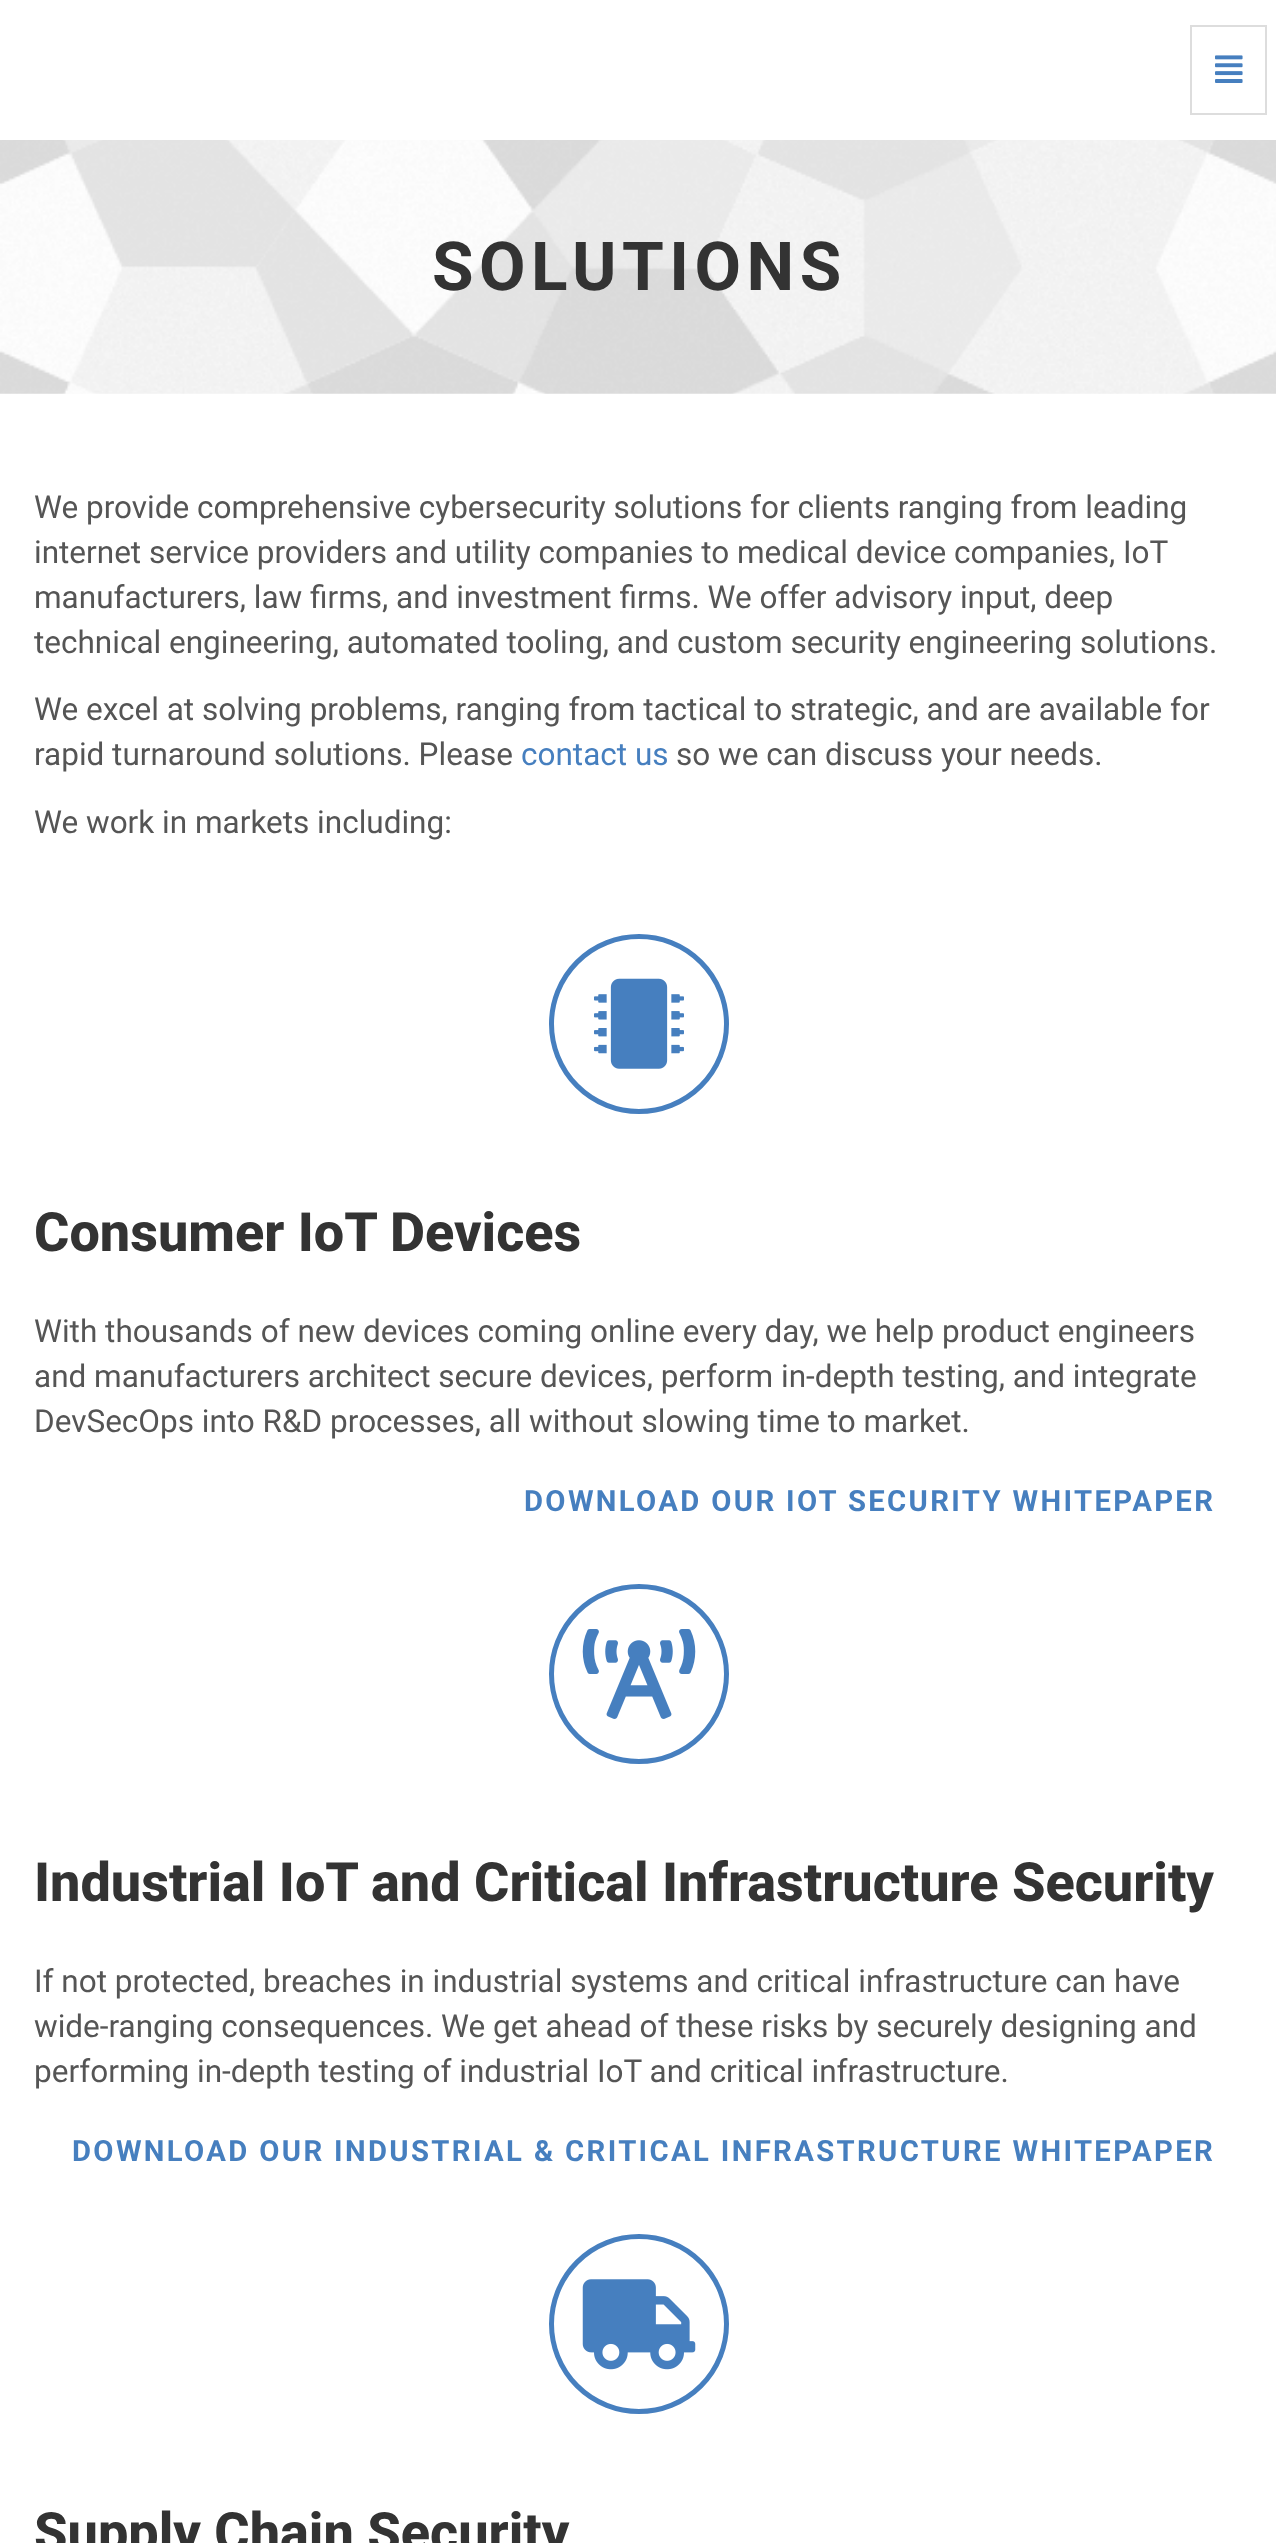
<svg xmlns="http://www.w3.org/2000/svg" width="1276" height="2543">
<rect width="100%" height="100%" fill="#fff"/>
<rect x="1191" y="26" width="75" height="88" fill="none" stroke="#ddd" stroke-width="2"/>
<image x="1215" y="55" width="28" height="28" href="media/1.png"/>
<image x="0" y="140" width="1276" height="254" href="media/2.png"/>
<text x="432" y="290" style="font-family:Roboto;font-size:67.5px;font-weight:bold;letter-spacing:5.5px;fill:#333">SOLUTIONS</text>
<text x="34" y="518" style="font-family:Roboto;font-size:31.5px;fill:#555">We provide comprehensive cybersecurity solutions for clients ranging from leading</text>
<text x="34" y="563" style="font-family:Roboto;font-size:31.5px;fill:#555">internet service providers and utility companies to medical device companies, IoT</text>
<text x="34" y="608" style="font-family:Roboto;font-size:31.5px;fill:#555">manufacturers, law firms, and investment firms. We offer advisory input, deep</text>
<text x="34" y="653" style="font-family:Roboto;font-size:31.5px;fill:#555">technical engineering, automated tooling, and custom security engineering solutions.</text>
<text x="34" y="720" style="font-family:Roboto;font-size:31.5px;fill:#555">We excel at solving problems, ranging from tactical to strategic, and are available for</text>
<text x="34" y="765" style="font-family:Roboto;font-size:31.5px;fill:#555">rapid turnaround solutions. Please</text>
<text x="521" y="765" style="font-family:Roboto;font-size:31.5px;fill:#467fbf">contact us</text>
<text x="676" y="765" style="font-family:Roboto;font-size:31.5px;fill:#555">so we can discuss your needs.</text>
<text x="34" y="833" style="font-family:Roboto;font-size:31.5px;fill:#555">We work in markets including:</text>
<circle cx="639" cy="1024" r="87.5" fill="none" stroke="#467fbf" stroke-width="5"/>
<image x="594" y="978" width="90" height="91" href="media/3.png"/>
<text x="34" y="1251" style="font-family:Roboto;font-size:54px;font-weight:800;fill:#333">Consumer IoT Devices</text>
<text x="34" y="1342" style="font-family:Roboto;font-size:31.5px;fill:#555">With thousands of new devices coming online every day, we help product engineers</text>
<text x="34" y="1387" style="font-family:Roboto;font-size:31.5px;fill:#555">and manufacturers architect secure devices, perform in-depth testing, and integrate</text>
<text x="34" y="1432" style="font-family:Roboto;font-size:31.5px;fill:#555">DevSecOps into R&amp;D processes, all without slowing time to market.</text>
<text x="524" y="1511" style="font-family:Roboto;font-size:29.25px;font-weight:bold;letter-spacing:2.35px;fill:#467fbf">DOWNLOAD OUR IOT SECURITY WHITEPAPER</text>
<circle cx="639" cy="1674" r="87.5" fill="none" stroke="#467fbf" stroke-width="5"/>
<image x="582" y="1629" width="114" height="90" href="media/4.png"/>
<text x="34" y="1901" style="font-family:Roboto;font-size:54px;font-weight:800;fill:#333">Industrial IoT and Critical Infrastructure Security</text>
<text x="34" y="1992" style="font-family:Roboto;font-size:31.5px;fill:#555">If not protected, breaches in industrial systems and critical infrastructure can have</text>
<text x="34" y="2037" style="font-family:Roboto;font-size:31.5px;fill:#555">wide-ranging consequences. We get ahead of these risks by securely designing and</text>
<text x="34" y="2082" style="font-family:Roboto;font-size:31.5px;fill:#555">performing in-depth testing of industrial IoT and critical infrastructure.</text>
<text x="72" y="2161" style="font-family:Roboto;font-size:29.25px;font-weight:bold;letter-spacing:2.35px;fill:#467fbf">DOWNLOAD OUR INDUSTRIAL &amp; CRITICAL INFRASTRUCTURE WHITEPAPER</text>
<circle cx="639" cy="2324" r="87.5" fill="none" stroke="#467fbf" stroke-width="5"/>
<image x="582" y="2279" width="114" height="91" href="media/5.png"/>
<text x="34" y="2551" style="font-family:Roboto;font-size:54px;font-weight:800;fill:#333">Supply Chain Security</text>
</svg>
